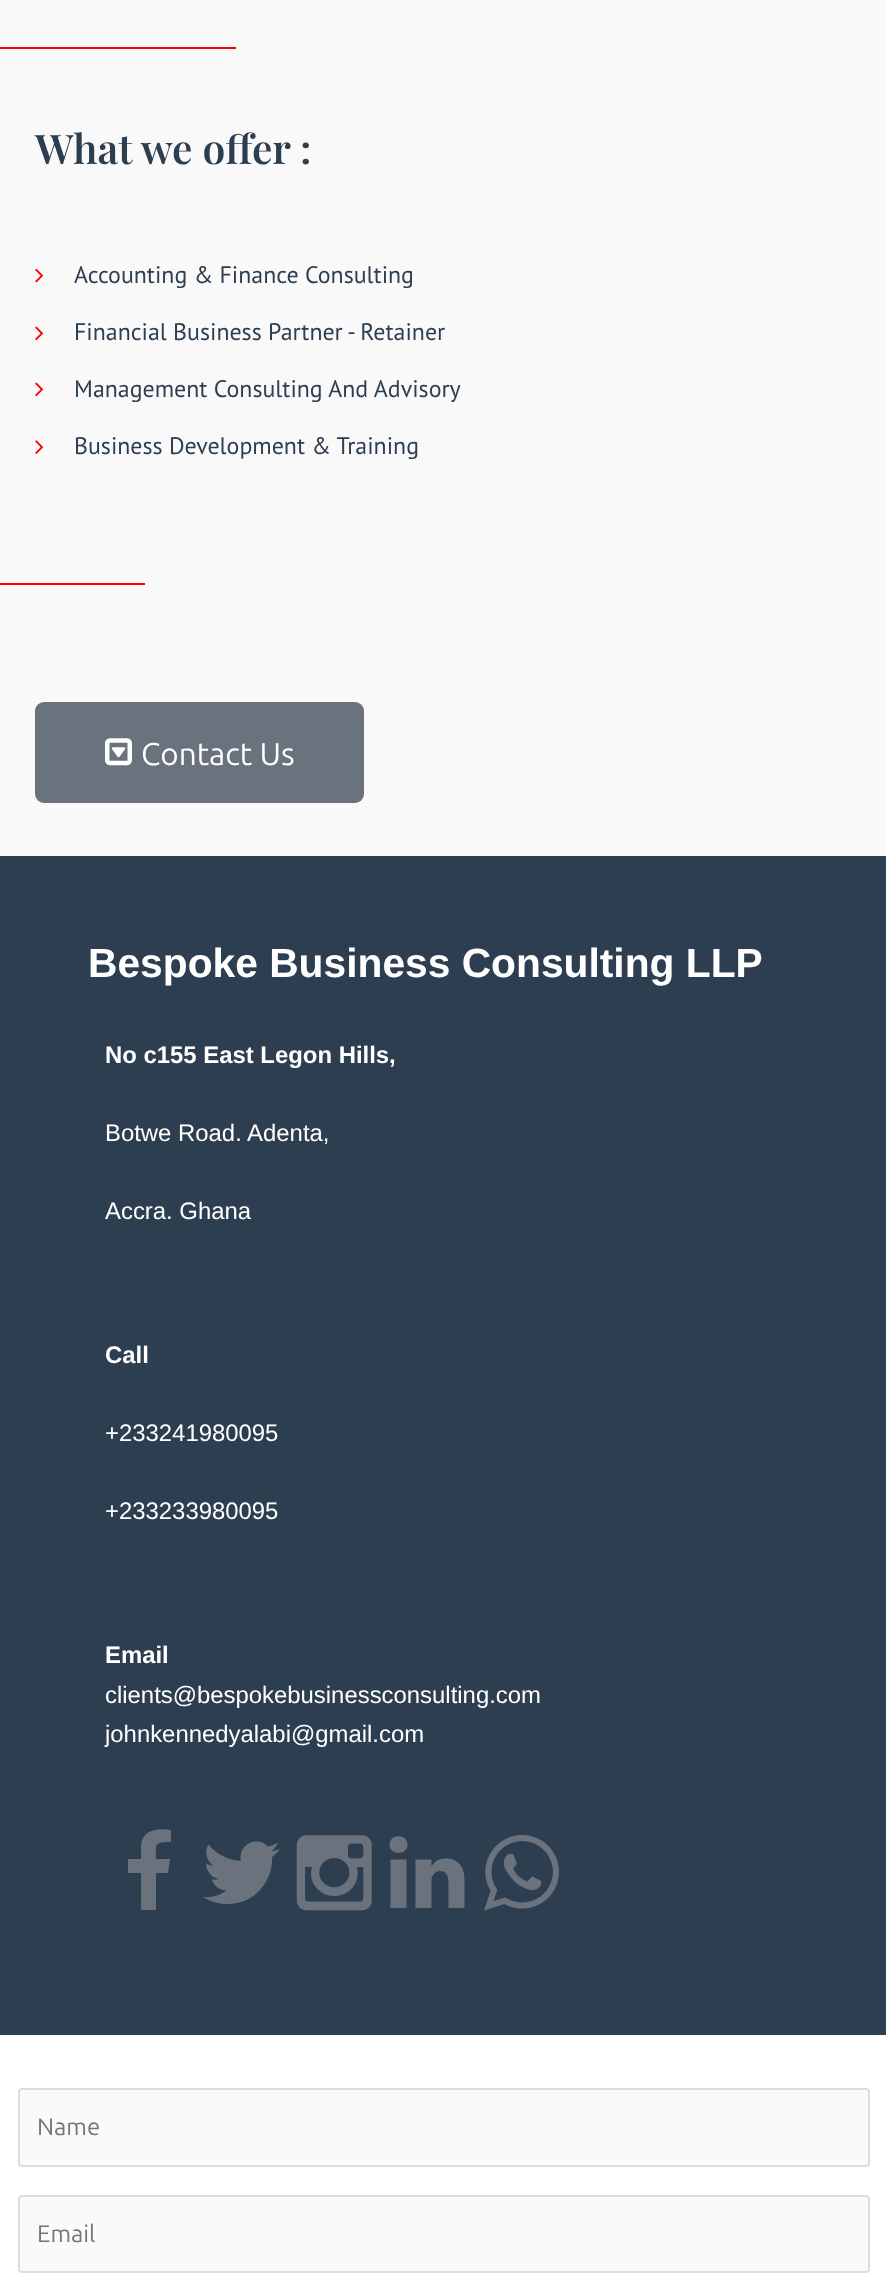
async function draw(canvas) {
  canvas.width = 886
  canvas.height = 2274
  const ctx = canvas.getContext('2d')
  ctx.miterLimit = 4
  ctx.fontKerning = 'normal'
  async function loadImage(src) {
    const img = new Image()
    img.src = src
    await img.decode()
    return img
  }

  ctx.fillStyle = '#fff'
  ctx.fillRect(0, 0, 886, 2274)
  ctx.fillStyle = '#f9f9f9'
  ctx.fillRect(0, 0, 886, 856)
  ctx.fillStyle = '#fe0000'
  ctx.fillRect(0, 47, 236, 2)
  ctx.font = '600 40.75px Playfair Display'
  ctx.fillStyle = '#2c3e50'
  ctx.fillText('What we offer :', 35, 164)
  ctx.drawImage(await loadImage('image0.png'), 35, 268, 9, 15)
  ctx.font = '23.9px PT Sans'
  ctx.fillText('Accounting & Finance Consulting', 74, 283)
  ctx.drawImage(await loadImage('image1.png'), 35, 326, 9, 15)
  ctx.fillText('Financial Business Partner - Retainer', 74, 340)
  ctx.drawImage(await loadImage('image1.png'), 35, 382, 9, 15)
  ctx.fillText('Management Consulting And Advisory', 74, 397)
  ctx.drawImage(await loadImage('image2.png'), 35, 440, 9, 14)
  ctx.fillText('Business Development & Training', 74, 454)
  ctx.fillStyle = '#fe0000'
  ctx.fillRect(0, 583, 145, 2)
  ctx.fillStyle = '#69727d'
  ctx.beginPath()
  ctx.roundRect(35, 702, 329, 101, 9)
  ctx.fill()
  ctx.drawImage(await loadImage('image3.png'), 105, 738, 27, 28)
  ctx.font = '31.5px Ubuntu'
  ctx.fillStyle = '#fff'
  ctx.fillText('Contact Us', 141, 765)
  ctx.fillStyle = '#2c3e50'
  ctx.fillRect(0, 856, 886, 1179)
  ctx.font = 'bold 40.75px Liberation Sans'
  ctx.fillStyle = '#fff'
  ctx.fillText('Bespoke Business Consulting LLP', 88, 977)
  ctx.font = 'bold 23.9px Liberation Sans'
  ctx.fillText('No c155 East Legon Hills,', 105, 1063)
  ctx.font = '23.9px Liberation Sans'
  ctx.fillText('Botwe Road. Adenta,', 105, 1141)
  ctx.fillText('Accra. Ghana', 105, 1219)
  ctx.font = 'bold 23.9px Liberation Sans'
  ctx.fillText('Call', 105, 1363)
  ctx.font = '23.9px Liberation Sans'
  ctx.fillText('+233241980095', 105, 1441)
  ctx.fillText('+233233980095', 105, 1519)
  ctx.font = 'bold 23.9px Liberation Sans'
  ctx.fillText('Email', 105, 1663)
  ctx.font = '23.9px Liberation Sans'
  ctx.fillText('clients@bespokebusinessconsulting.com', 105, 1703)
  ctx.fillText('johnkennedyalabi@gmail.com', 105, 1742)
  ctx.fillStyle = '#69727d'
  ctx.beginPath()
  ctx.moveTo(171, 1830)
  ctx.lineTo(171, 1842)
  ctx.bezierCurveTo(154, 1842, 156, 1843, 156, 1859)
  ctx.lineTo(170, 1859)
  ctx.lineTo(168, 1873)
  ctx.lineTo(156, 1873)
  ctx.lineTo(156, 1910)
  ctx.lineTo(141, 1910)
  ctx.lineTo(141, 1873)
  ctx.lineTo(128, 1873)
  ctx.lineTo(128, 1859)
  ctx.lineTo(141, 1859)
  ctx.lineTo(141, 1844)
  ctx.bezierCurveTo(144, 1829, 158, 1828, 171, 1830)
  ctx.closePath()
  ctx.fill()
  ctx.drawImage(await loadImage('image4.png'), 203, 1841, 77, 63)
  ctx.drawImage(await loadImage('image5.png'), 296, 1835, 76, 76)
  ctx.drawImage(await loadImage('image6.png'), 389, 1836, 76, 72)
  ctx.drawImage(await loadImage('image7.png'), 484, 1835, 75, 76)
  ctx.fillStyle = '#fafafa'
  ctx.beginPath()
  ctx.roundRect(19, 2089, 850, 77, 3)
  ctx.fill()
  ctx.strokeStyle = '#ddd'
  ctx.lineWidth = 2
  ctx.stroke()
  ctx.font = '23.9px Ubuntu'
  ctx.fillStyle = '#757575'
  ctx.fillText('Name', 37, 2135)
  ctx.fillStyle = '#fafafa'
  ctx.beginPath()
  ctx.roundRect(19, 2196, 850, 76, 3)
  ctx.fill()
  ctx.stroke()
  ctx.fillStyle = '#757575'
  ctx.fillText('Email', 37, 2242)
}

draw(document.querySelector('canvas'))
